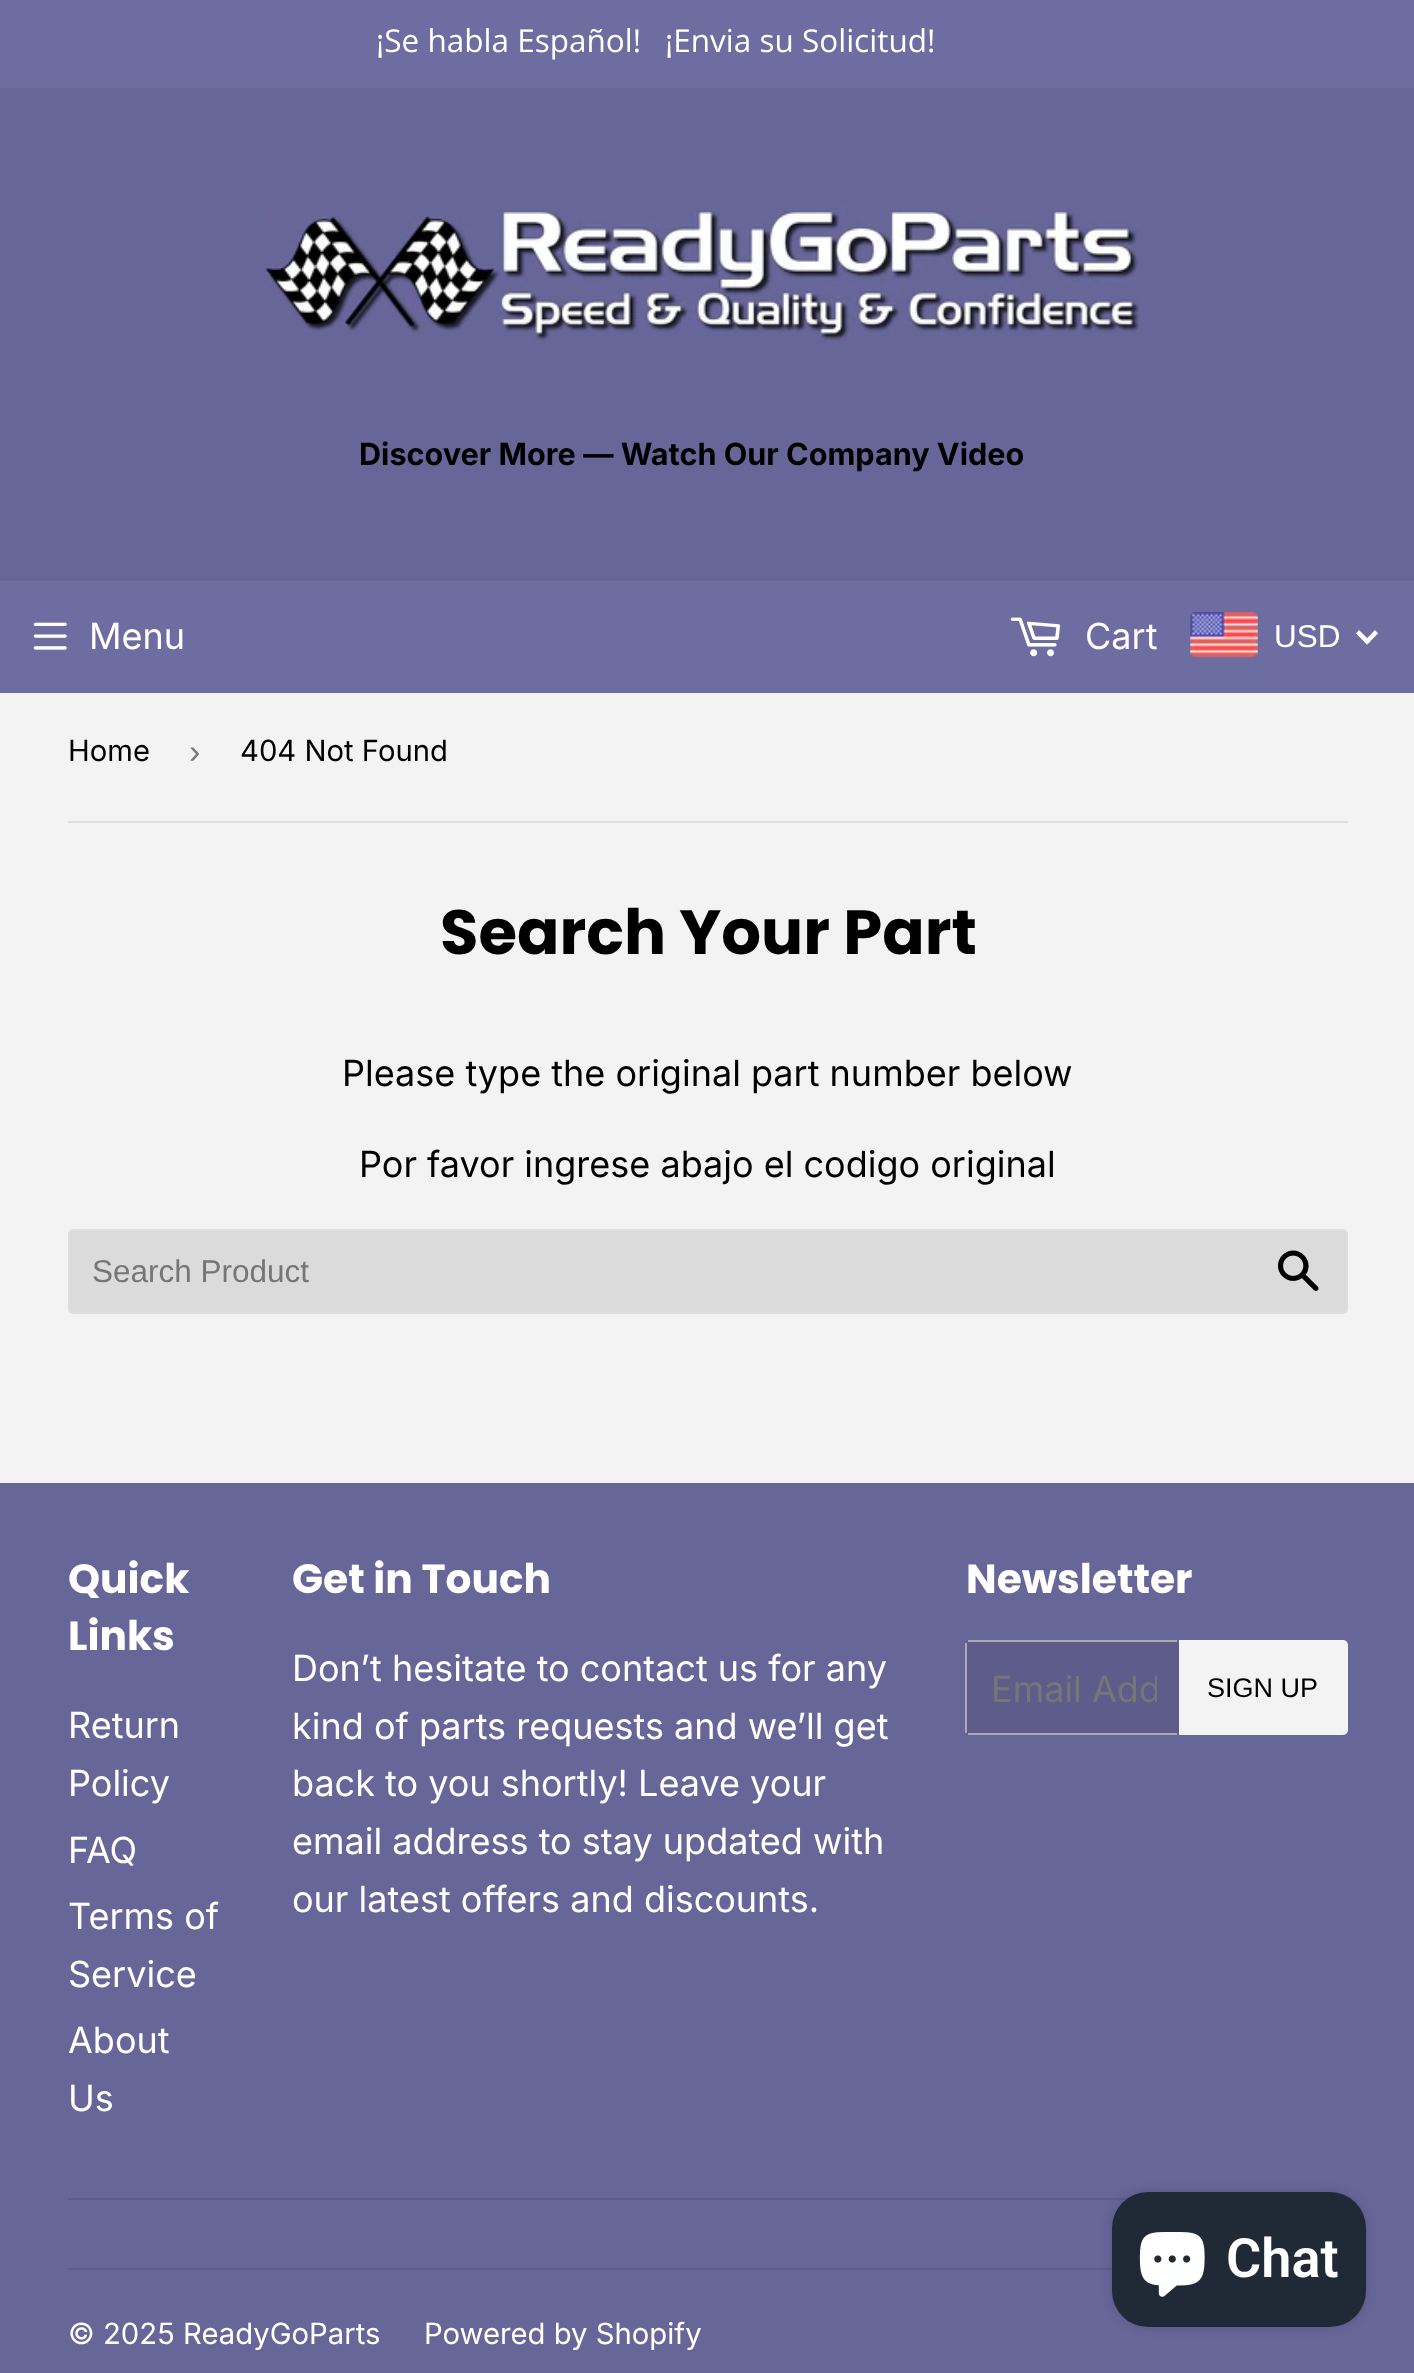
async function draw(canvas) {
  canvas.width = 1414
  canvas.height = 2373
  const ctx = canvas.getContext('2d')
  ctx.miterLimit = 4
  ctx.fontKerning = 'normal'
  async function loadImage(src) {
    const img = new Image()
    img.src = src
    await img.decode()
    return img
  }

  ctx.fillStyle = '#f3f3f3'
  ctx.fillRect(0, 0, 1414, 2373)
  ctx.fillStyle = '#6e6da2'
  ctx.fillRect(0, 0, 1414, 88)
  ctx.font = '31.5px Open Sans'
  ctx.fillStyle = '#fff'
  ctx.fillText('¡Se habla Español!  ¡Envia su Solicitud!', 376, 52)
  ctx.fillStyle = '#676699'
  ctx.fillRect(0, 88, 1414, 493)
  ctx.drawImage(await loadImage('image0.png'), 262, 205, 877, 138)
  ctx.font = 'bold 30.6px Inter'
  ctx.fillStyle = '#000'
  ctx.fillText('Discover More — Watch Our Company Video', 359, 465)
  ctx.fillStyle = '#6e6da2'
  ctx.fillRect(0, 581, 1414, 112)
  ctx.drawImage(await loadImage('image1.png'), 33, 622, 34, 28)
  ctx.font = '36px Inter'
  ctx.fillStyle = '#fff'
  ctx.fillText('Menu', 89, 649)
  ctx.drawImage(await loadImage('image2.png'), 1010, 617, 50, 40)
  ctx.fillText('Cart', 1085, 649)
  ctx.drawImage(await loadImage('image3.png'), 1190, 612, 68, 45)
  ctx.font = '31.5px Liberation Sans'
  ctx.fillText('USD', 1274, 647)
  ctx.beginPath()
  ctx.moveTo(1375, 630)
  ctx.lineTo(1378, 633.5)
  ctx.lineTo(1367, 644.5)
  ctx.lineTo(1364, 641.5)
  ctx.closePath()
  ctx.fill()
  ctx.beginPath()
  ctx.moveTo(1359, 630)
  ctx.lineTo(1370.5, 641.5)
  ctx.lineTo(1367, 644.5)
  ctx.lineTo(1356, 633.5)
  ctx.closePath()
  ctx.fill()
  ctx.fillStyle = '#dedede'
  ctx.fillRect(68, 821, 1280, 2)
  ctx.font = '29.25px Inter'
  ctx.fillStyle = '#000'
  ctx.fillText('Home', 68, 761)
  ctx.font = '34px Liberation Sans'
  ctx.fillStyle = '#767676'
  ctx.fillText('›', 189, 763)
  ctx.font = '29.25px Inter'
  ctx.fillStyle = '#000'
  ctx.fillText('404 Not Found', 240, 761)
  ctx.font = 'bold 62.5px Poppins'
  ctx.fillText('Search Your Part', 440, 954)
  ctx.font = '36px Inter'
  ctx.fillText('Please type the original part number below', 342, 1086)
  ctx.fillText('Por favor ingrese abajo el codigo original', 359, 1177)
  ctx.fillStyle = '#dbdbdb'
  ctx.beginPath()
  ctx.roundRect(69, 1230, 1278, 83, 4)
  ctx.fill()
  ctx.strokeStyle = '#dedede'
  ctx.lineWidth = 2
  ctx.stroke()
  ctx.font = '31.5px Liberation Sans'
  ctx.fillStyle = '#767676'
  ctx.fillText('Search Product', 92, 1282)
  ctx.drawImage(await loadImage('image4.png'), 1278, 1250, 41, 41)
  ctx.fillStyle = '#676699'
  ctx.fillRect(0, 1483, 1414, 890)
  ctx.font = 'bold 40.75px Poppins'
  ctx.fillStyle = '#fff'
  ctx.fillText('Quick', 68, 1593)
  ctx.fillText('Links', 68, 1650)
  ctx.font = '36px Inter'
  ctx.fillText('Return', 68, 1738)
  ctx.fillText('Policy', 68, 1796)
  ctx.fillText('FAQ', 68, 1863)
  ctx.fillText('Terms of', 68, 1929)
  ctx.fillText('Service', 68, 1987)
  ctx.fillText('About', 68, 2053)
  ctx.fillText('Us', 68, 2111)
  ctx.font = 'bold 40.75px Poppins'
  ctx.fillText('Get in Touch', 292, 1593)
  ctx.font = '36px Inter'
  ctx.fillText('Don’t hesitate to contact us for any', 292, 1681)
  ctx.fillText('kind of parts requests and we’ll get', 292, 1739)
  ctx.fillText('back to you shortly! Leave your', 292, 1796)
  ctx.fillText('email address to stay updated with', 292, 1854)
  ctx.fillText('our latest offers and discounts.', 292, 1912)
  ctx.font = 'bold 40.75px Poppins'
  ctx.fillText('Newsletter', 966, 1593)
  ctx.fillStyle = '#5d5c8a'
  ctx.beginPath()
  ctx.roundRect(965, 1640, 214, 95, 5)
  ctx.fill()
  ctx.fillStyle = '#ababab'
  ctx.fillRect(968, 1640, 209, 2)
  ctx.fillRect(968, 1733, 209, 2)
  ctx.fillRect(965, 1643, 2, 90)
  ctx.save()
  ctx.beginPath()
  ctx.rect(990, 1665, 167, 45)
  ctx.clip()
  ctx.font = '36px Inter'
  ctx.fillStyle = '#767676'
  ctx.fillText('Email Add', 991, 1702)
  ctx.restore()
  ctx.fillStyle = '#f3f3f3'
  ctx.beginPath()
  ctx.roundRect(1179, 1640, 169, 95, [0, 5, 5, 0])
  ctx.fill()
  ctx.font = '27px Liberation Sans'
  ctx.fillStyle = '#000'
  ctx.fillText('SIGN UP', 1207, 1697)
  ctx.fillStyle = '#5d5c8a'
  ctx.fillRect(68, 2198, 1060, 2)
  ctx.fillRect(68, 2268, 1044, 2)
  ctx.font = '29.25px Inter'
  ctx.fillStyle = '#fff'
  ctx.fillText('© 2025 ReadyGoParts', 68, 2344)
  ctx.fillText('Powered by Shopify', 424, 2344)
  ctx.fillStyle = '#00000026'
  ctx.filter = 'blur(5.5px)'
  ctx.beginPath()
  ctx.roundRect(1112, 2192, 254, 135, 36)
  ctx.fill()
  ctx.filter = 'none'
  ctx.fillStyle = '#202a36'
  ctx.beginPath()
  ctx.roundRect(1112, 2192, 254, 135, 36)
  ctx.fill()
  ctx.drawImage(await loadImage('image5.png'), 1139, 2232, 66, 65)
  ctx.font = '600 54px Roboto'
  ctx.fillStyle = '#fff'
  ctx.fillText('Chat', 1226, 2277)
}

draw(document.querySelector('canvas'))
